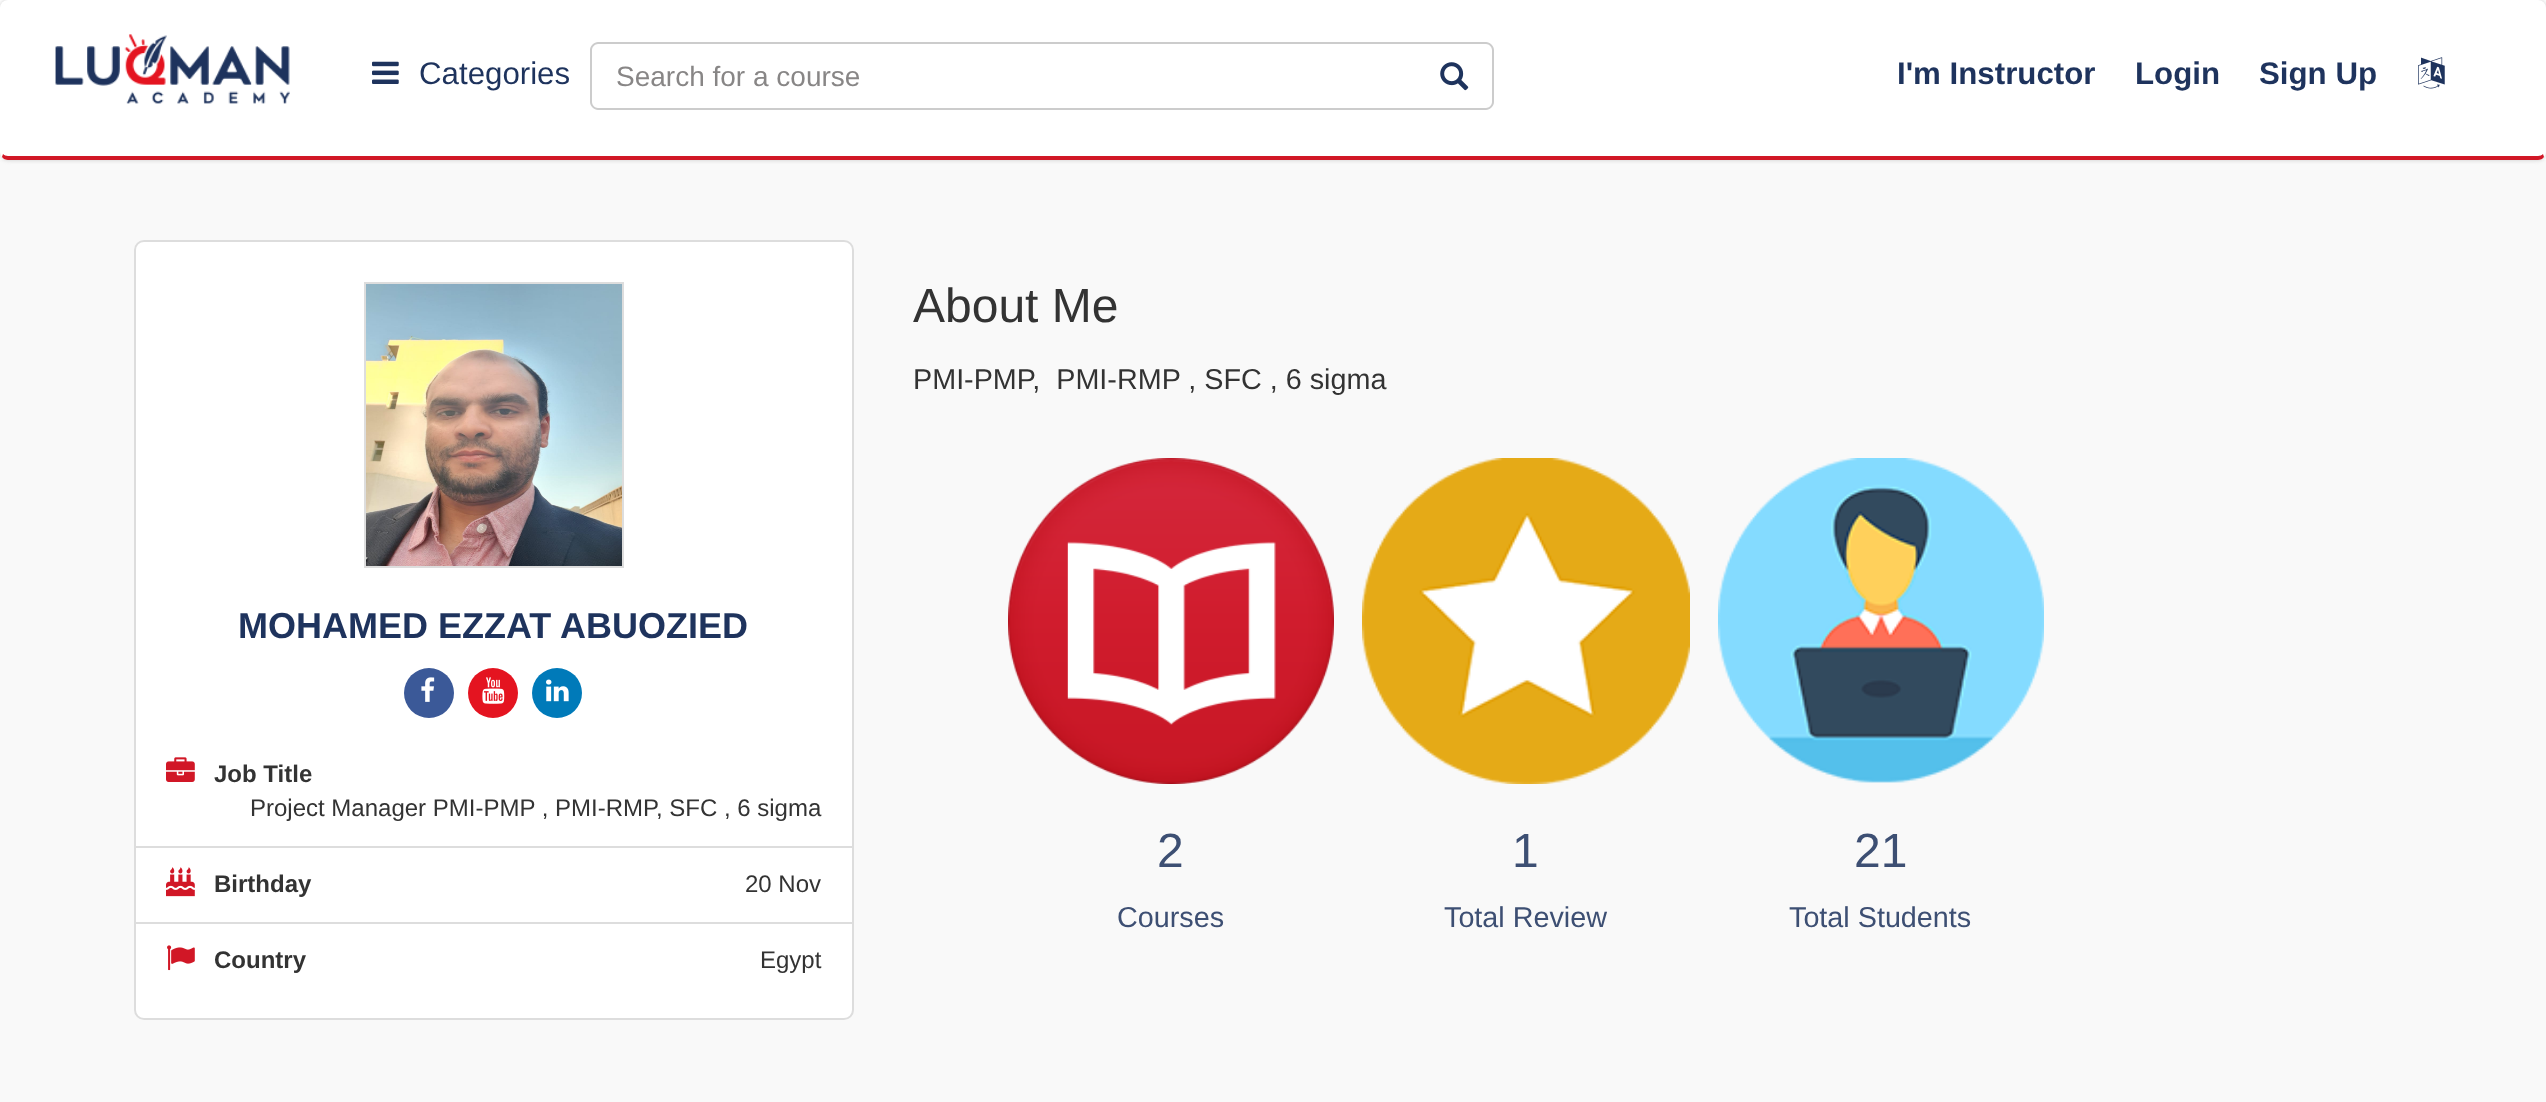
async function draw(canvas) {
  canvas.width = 2546
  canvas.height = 1102
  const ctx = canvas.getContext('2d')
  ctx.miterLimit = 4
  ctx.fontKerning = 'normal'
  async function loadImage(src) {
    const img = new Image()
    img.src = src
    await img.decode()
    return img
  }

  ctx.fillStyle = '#f9f9f9'
  ctx.fillRect(0, 0, 2546, 1102)
  ctx.fillStyle = '#fff'
  ctx.fillRect(0, 0, 2546, 160)
  ctx.fillStyle = '#ccc'
  ctx.filter = 'blur(2px)'
  ctx.beginPath()
  ctx.roundRect(0, 0, 2546, 160, 8)
  ctx.fill()
  ctx.filter = 'none'
  ctx.fillStyle = '#fff'
  ctx.beginPath()
  ctx.roundRect(0, 0, 2546, 160, 8)
  ctx.fill()
  ctx.fillStyle = '#d11726'
  ctx.beginPath()
  ctx.moveTo(8, 160)
  ctx.lineTo(2538, 160)
  ctx.bezierCurveTo(2540, 160, 2543, 159, 2544, 157)
  ctx.lineTo(2543, 154)
  ctx.bezierCurveTo(2542, 155, 2540, 156, 2538, 156)
  ctx.lineTo(8, 156)
  ctx.bezierCurveTo(6, 156, 4, 155, 3, 154)
  ctx.lineTo(2, 157)
  ctx.bezierCurveTo(3, 159, 6, 160, 8, 160)
  ctx.closePath()
  ctx.fill()
  ctx.drawImage(await loadImage('image0.png'), 55, 34, 235, 70)
  ctx.drawImage(await loadImage('image1.png'), 372, 61, 27, 23)
  ctx.font = '31.25px Liberation Sans'
  ctx.fillStyle = '#1e335d'
  ctx.fillText('Categories', 419, 84)
  ctx.fillStyle = '#ccc'
  ctx.beginPath()
  ctx.moveTo(598, 42)
  ctx.lineTo(1416, 42)
  ctx.lineTo(1416, 110)
  ctx.lineTo(598, 110)
  ctx.bezierCurveTo(594, 110, 590, 106, 590, 102)
  ctx.lineTo(590, 50)
  ctx.bezierCurveTo(590, 46, 594, 42, 598, 42)
  ctx.closePath()
  ctx.moveTo(598, 44)
  ctx.lineTo(1416, 44)
  ctx.lineTo(1416, 108)
  ctx.lineTo(598, 108)
  ctx.bezierCurveTo(595, 108, 592, 105, 592, 102)
  ctx.lineTo(592, 50)
  ctx.bezierCurveTo(592, 47, 595, 44, 598, 44)
  ctx.closePath()
  ctx.fill('evenodd')
  ctx.font = '28px Liberation Sans'
  ctx.fillStyle = '#888686'
  ctx.fillText('Search for a course', 616, 86)
  ctx.fillStyle = '#ccc'
  ctx.beginPath()
  ctx.moveTo(1416, 42)
  ctx.lineTo(1486, 42)
  ctx.bezierCurveTo(1490, 42, 1494, 46, 1494, 50)
  ctx.lineTo(1494, 102)
  ctx.bezierCurveTo(1494, 106, 1490, 110, 1486, 110)
  ctx.lineTo(1416, 110)
  ctx.closePath()
  ctx.moveTo(1416, 44)
  ctx.lineTo(1486, 44)
  ctx.bezierCurveTo(1489, 44, 1492, 47, 1492, 50)
  ctx.lineTo(1492, 102)
  ctx.bezierCurveTo(1492, 105, 1489, 108, 1486, 108)
  ctx.lineTo(1416, 108)
  ctx.closePath()
  ctx.fill('evenodd')
  ctx.drawImage(await loadImage('image2.png'), 1440, 62, 29, 29)
  ctx.font = 'bold 31.25px Liberation Sans'
  ctx.fillStyle = '#1e335d'
  ctx.fillText('I\'m Instructor', 1897, 84)
  ctx.fillText('Login', 2135, 84)
  ctx.fillText('Sign Up', 2259, 84)
  ctx.drawImage(await loadImage('image3.png'), 2418, 57, 27, 32)
  ctx.font = '48px Liberation Sans'
  ctx.fillStyle = '#333'
  ctx.fillText('About Me', 913, 322)
  ctx.font = '28.75px Liberation Sans'
  ctx.fillText('PMI-PMP,  PMI-RMP , SFC , 6 sigma', 913, 389)
  ctx.fillStyle = '#fff'
  ctx.beginPath()
  ctx.roundRect(135, 241, 718, 778, 9)
  ctx.fill()
  ctx.strokeStyle = '#ddd'
  ctx.lineWidth = 2
  ctx.stroke()
  ctx.strokeRect(365, 283, 258, 284)
  ctx.drawImage(await loadImage('image4.png'), 366, 284, 256, 282)
  ctx.font = 'bold 36px Liberation Sans'
  ctx.fillStyle = '#1e335d'
  ctx.fillText('MOHAMED EZZAT ABUOZIED', 238, 638)
  ctx.fillStyle = '#3b5998'
  ctx.beginPath()
  ctx.arc(429, 693, 25, 0, 2 * Math.PI)
  ctx.fill()
  ctx.drawImage(await loadImage('image5.png'), 421, 677, 14, 25)
  ctx.fillStyle = '#e41420'
  ctx.beginPath()
  ctx.arc(493, 693, 25, 0, 2 * Math.PI)
  ctx.fill()
  ctx.drawImage(await loadImage('image6.png'), 482, 677, 23, 27)
  ctx.fillStyle = '#007ab9'
  ctx.beginPath()
  ctx.arc(557, 693, 25, 0, 2 * Math.PI)
  ctx.fill()
  ctx.drawImage(await loadImage('image7.png'), 546, 679, 23, 23)
  ctx.fillStyle = '#ddd'
  ctx.fillRect(136, 846, 716, 2)
  ctx.drawImage(await loadImage('image8.png'), 166, 757, 29, 25)
  ctx.font = 'bold 24px Liberation Sans'
  ctx.fillStyle = '#333'
  ctx.fillText('Job Title', 214, 782)
  ctx.font = '24px Liberation Sans'
  ctx.fillText('Project Manager PMI-PMP , PMI-RMP, SFC , 6 sigma', 250, 816)
  ctx.fillStyle = '#ddd'
  ctx.fillRect(136, 922, 716, 2)
  ctx.drawImage(await loadImage('image9.png'), 166, 867, 29, 30)
  ctx.font = 'bold 24px Liberation Sans'
  ctx.fillStyle = '#333'
  ctx.fillText('Birthday', 214, 892)
  ctx.font = '24px Liberation Sans'
  ctx.fillText('20 Nov', 745, 892)
  ctx.drawImage(await loadImage('image10.png'), 167, 945, 28, 26)
  ctx.font = 'bold 24px Liberation Sans'
  ctx.fillText('Country', 214, 968)
  ctx.font = '24px Liberation Sans'
  ctx.fillText('Egypt', 760, 968)
  ctx.drawImage(await loadImage('image11.png'), 1008, 458, 326, 326)
  ctx.font = '48px Liberation Sans'
  ctx.fillStyle = '#3d4f73'
  ctx.fillText('2', 1157, 867)
  ctx.font = '28.75px Liberation Sans'
  ctx.fillText('Courses', 1117, 927)
  ctx.drawImage(await loadImage('image12.png'), 1362, 458, 328, 326)
  ctx.font = '48px Liberation Sans'
  ctx.fillText('1', 1512, 867)
  ctx.font = '28.75px Liberation Sans'
  ctx.fillText('Total Review', 1444, 927)
  ctx.drawImage(await loadImage('image13.png'), 1718, 458, 326, 325)
  ctx.font = '48px Liberation Sans'
  ctx.fillText('21', 1854, 867)
  ctx.font = '28.75px Liberation Sans'
  ctx.fillText('Total Students', 1789, 927)
}

draw(document.querySelector('canvas'))
